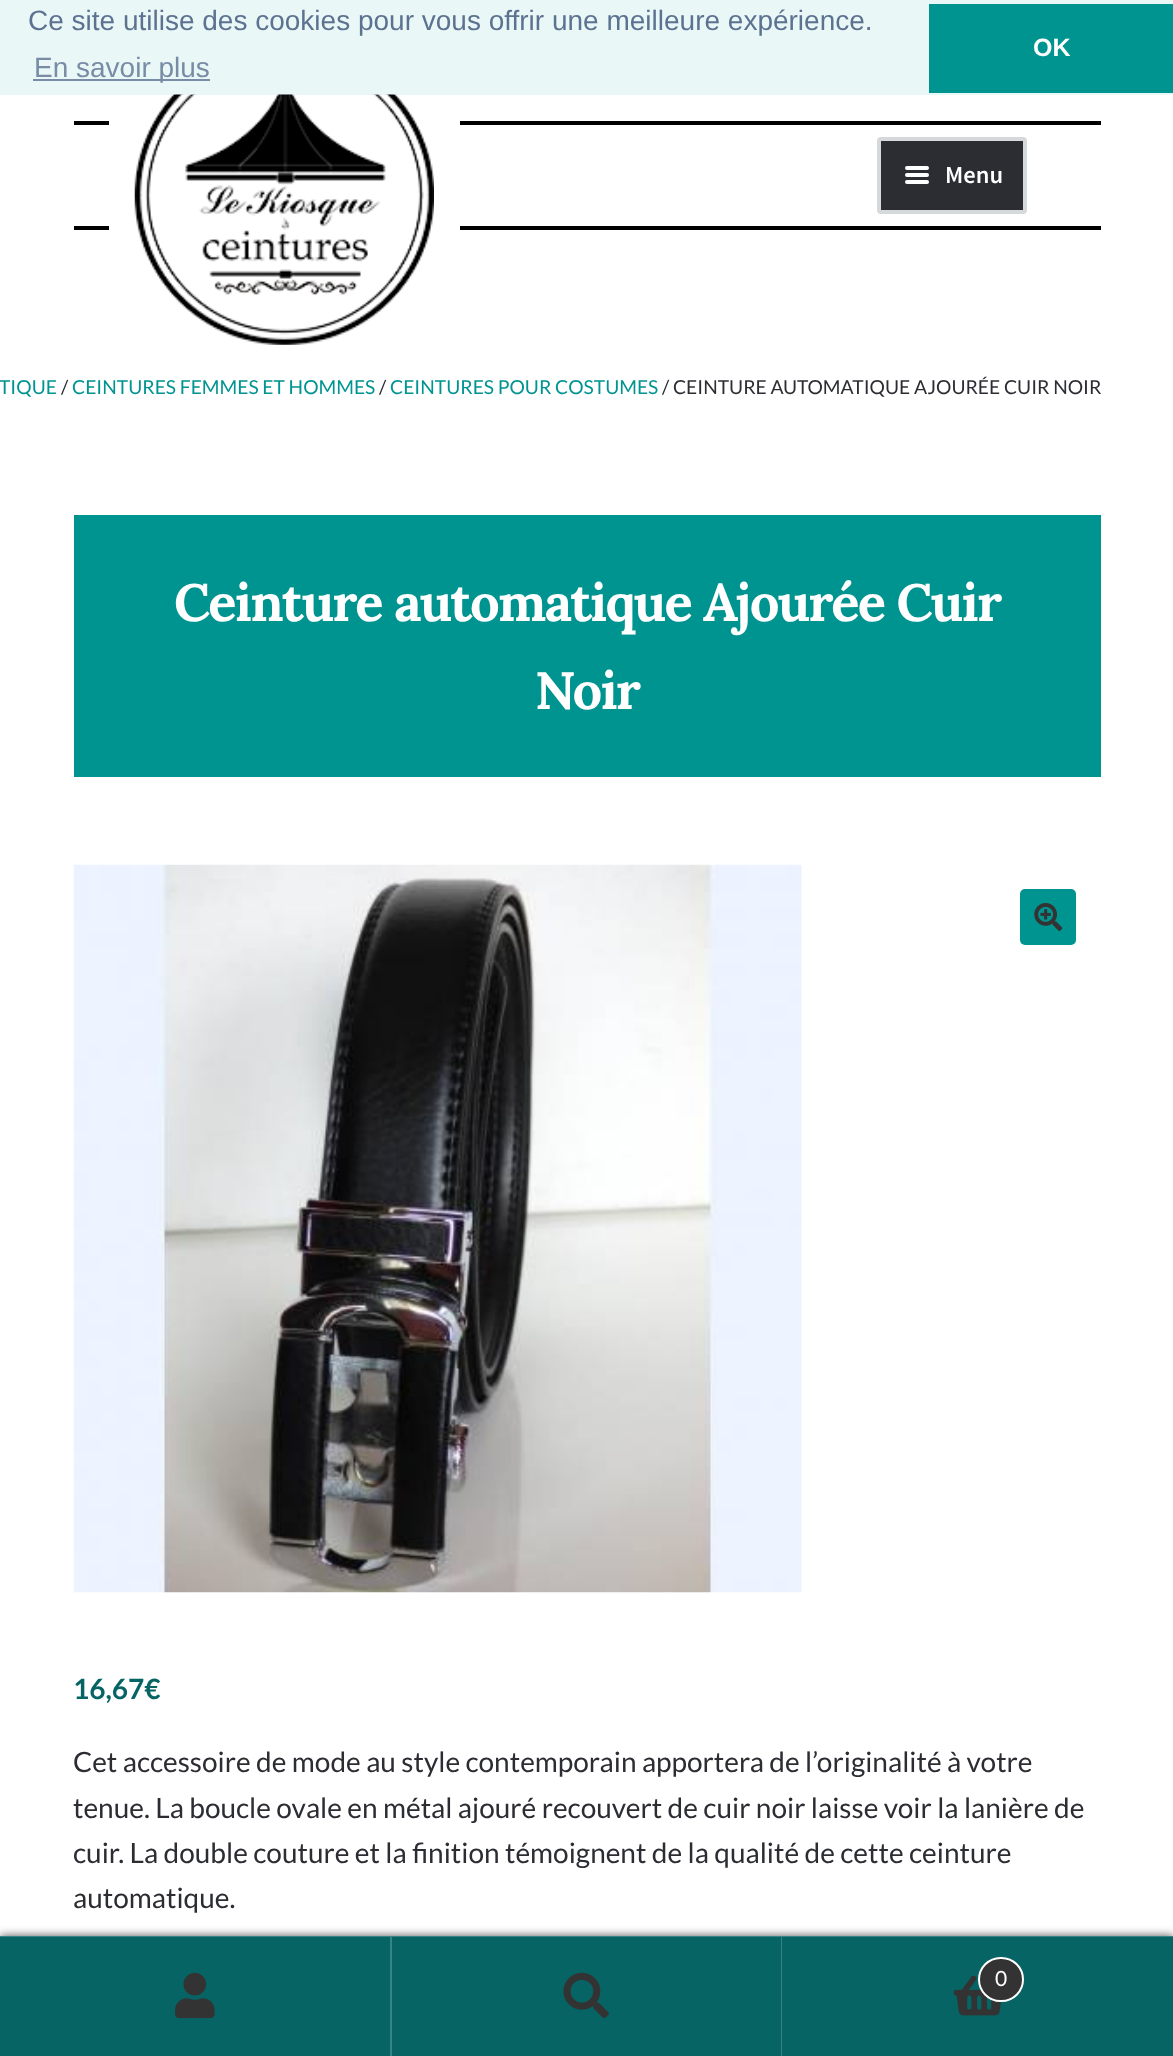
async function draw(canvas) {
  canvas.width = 1173
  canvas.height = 2056
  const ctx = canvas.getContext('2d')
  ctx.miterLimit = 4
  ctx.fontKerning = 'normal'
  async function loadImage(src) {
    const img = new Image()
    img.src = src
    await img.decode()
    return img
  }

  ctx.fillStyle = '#fff'
  ctx.fillRect(0, 0, 1173, 2056)
  ctx.fillStyle = '#eaf7f7'
  ctx.fillRect(0, 0, 1173, 95)
  ctx.font = '28px Liberation Sans'
  ctx.fillStyle = '#5c7291'
  ctx.fillText('Ce site utilise des cookies pour vous offrir une meilleure expérience.', 28, 30)
  ctx.fillStyle = '#788da5'
  ctx.fillRect(33, 79, 177, 2)
  ctx.fillText('En savoir plus', 34, 77)
  ctx.fillStyle = '#009491'
  ctx.fillRect(929, 4, 244, 89)
  ctx.font = 'bold 25px Liberation Sans'
  ctx.fillStyle = '#fff'
  ctx.fillText('OK', 1033, 56)
  ctx.fillStyle = '#000'
  ctx.fillRect(74, 121, 1027, 4)
  ctx.fillRect(74, 226, 1027, 4)
  ctx.fillStyle = '#fff'
  ctx.fillRect(109, 121, 351, 109)
  ctx.drawImage(await loadImage('image0.png'), 134, 94, 300, 251)
  ctx.fillStyle = '#2c2d33'
  ctx.beginPath()
  ctx.roundRect(879, 139, 146, 73, 2)
  ctx.fill()
  ctx.strokeStyle = '#d5d9db'
  ctx.lineWidth = 4
  ctx.stroke()
  ctx.fillStyle = '#fff'
  ctx.beginPath()
  ctx.roundRect(905, 166, 24, 4, 2)
  ctx.fill()
  ctx.beginPath()
  ctx.roundRect(905, 173, 24, 4, 2)
  ctx.fill()
  ctx.font = '600 24.5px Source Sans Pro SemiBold'
  ctx.fillText('Menu', 945, 183)
  ctx.beginPath()
  ctx.roundRect(905, 180, 24, 4, 2)
  ctx.fill()
  ctx.font = '19.25px Lato'
  ctx.fillStyle = '#009491'
  ctx.fillText('TIQUE', -1, 394)
  ctx.fillStyle = '#2c2d33'
  ctx.fillText('/', 61, 394)
  ctx.fillStyle = '#009491'
  ctx.fillText('CEINTURES FEMMES ET HOMMES', 72, 394)
  ctx.fillStyle = '#2c2d33'
  ctx.fillText('/', 379, 394)
  ctx.fillStyle = '#009491'
  ctx.fillText('CEINTURES POUR COSTUMES', 390, 394)
  ctx.fillStyle = '#2c2d33'
  ctx.fillText('/ CEINTURE AUTOMATIQUE AJOURÉE CUIR NOIR', 662, 394)
  ctx.fillStyle = '#009491'
  ctx.fillRect(74, 515, 1027, 262)
  ctx.letterSpacing = '-1.75px'
  ctx.font = 'bold 52.5px Lora'
  ctx.fillStyle = '#fff'
  ctx.fillText('Ceinture automatique Ajourée Cuir', 174, 621)
  ctx.fillText('Noir', 535, 709)
  ctx.drawImage(await loadImage('image1.png'), 73, 864, 729, 729)
  ctx.fillStyle = '#009491'
  ctx.beginPath()
  ctx.roundRect(1020, 889, 56, 56, 5)
  ctx.fill()
  ctx.drawImage(await loadImage('image2.png'), 1034, 903, 29, 28)
  ctx.letterSpacing = '0px'
  ctx.font = 'bold 28px Lato'
  ctx.fillStyle = '#066464'
  ctx.fillText('16,67€', 73, 1699)
  ctx.font = '28px Lato'
  ctx.fillStyle = '#2c2d33'
  ctx.fillText('Cet accessoire de mode au style contemporain apportera de l’originalité à votre', 73, 1772)
  ctx.fillText('tenue. La boucle ovale en métal ajouré recouvert de cuir noir laisse voir la lanière de', 73, 1818)
  ctx.fillText('cuir. La double couture et la finition témoignent de la qualité de cette ceinture', 73, 1863)
  ctx.fillText('automatique.', 73, 1908)
  ctx.fillStyle = '#000000b3'
  ctx.filter = 'blur(5px)'
  ctx.beginPath()
  ctx.rect(0, 1936, 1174, 120)
  ctx.fill()
  ctx.filter = 'none'
  ctx.fillStyle = '#388383'
  ctx.fillRect(0, 1936, 1173, 1)
  ctx.fillStyle = '#066464'
  ctx.fillRect(0, 1937, 390, 119)
  ctx.fillStyle = '#388383'
  ctx.fillRect(390, 1937, 2, 119)
  ctx.drawImage(await loadImage('image3.png'), 175, 1972, 40, 47)
  ctx.fillStyle = '#066464'
  ctx.fillRect(392, 1937, 781, 119)
  ctx.fillStyle = '#ffffff33'
  ctx.fillRect(781, 1937, 1, 119)
  ctx.drawImage(await loadImage('image4.png'), 563, 1972, 46, 47)
  ctx.drawImage(await loadImage('image5.png'), 953, 1975, 48, 41)
  ctx.fillStyle = '#333'
  ctx.beginPath()
  ctx.roundRect(979, 1958, 44, 43, 21.5)
  ctx.fill()
  ctx.strokeStyle = '#fff'
  ctx.lineWidth = 2
  ctx.stroke()
  ctx.font = '21px Lato'
  ctx.fillStyle = '#fff'
  ctx.fillText('0', 995, 1986)
}

draw(document.querySelector('canvas'))
